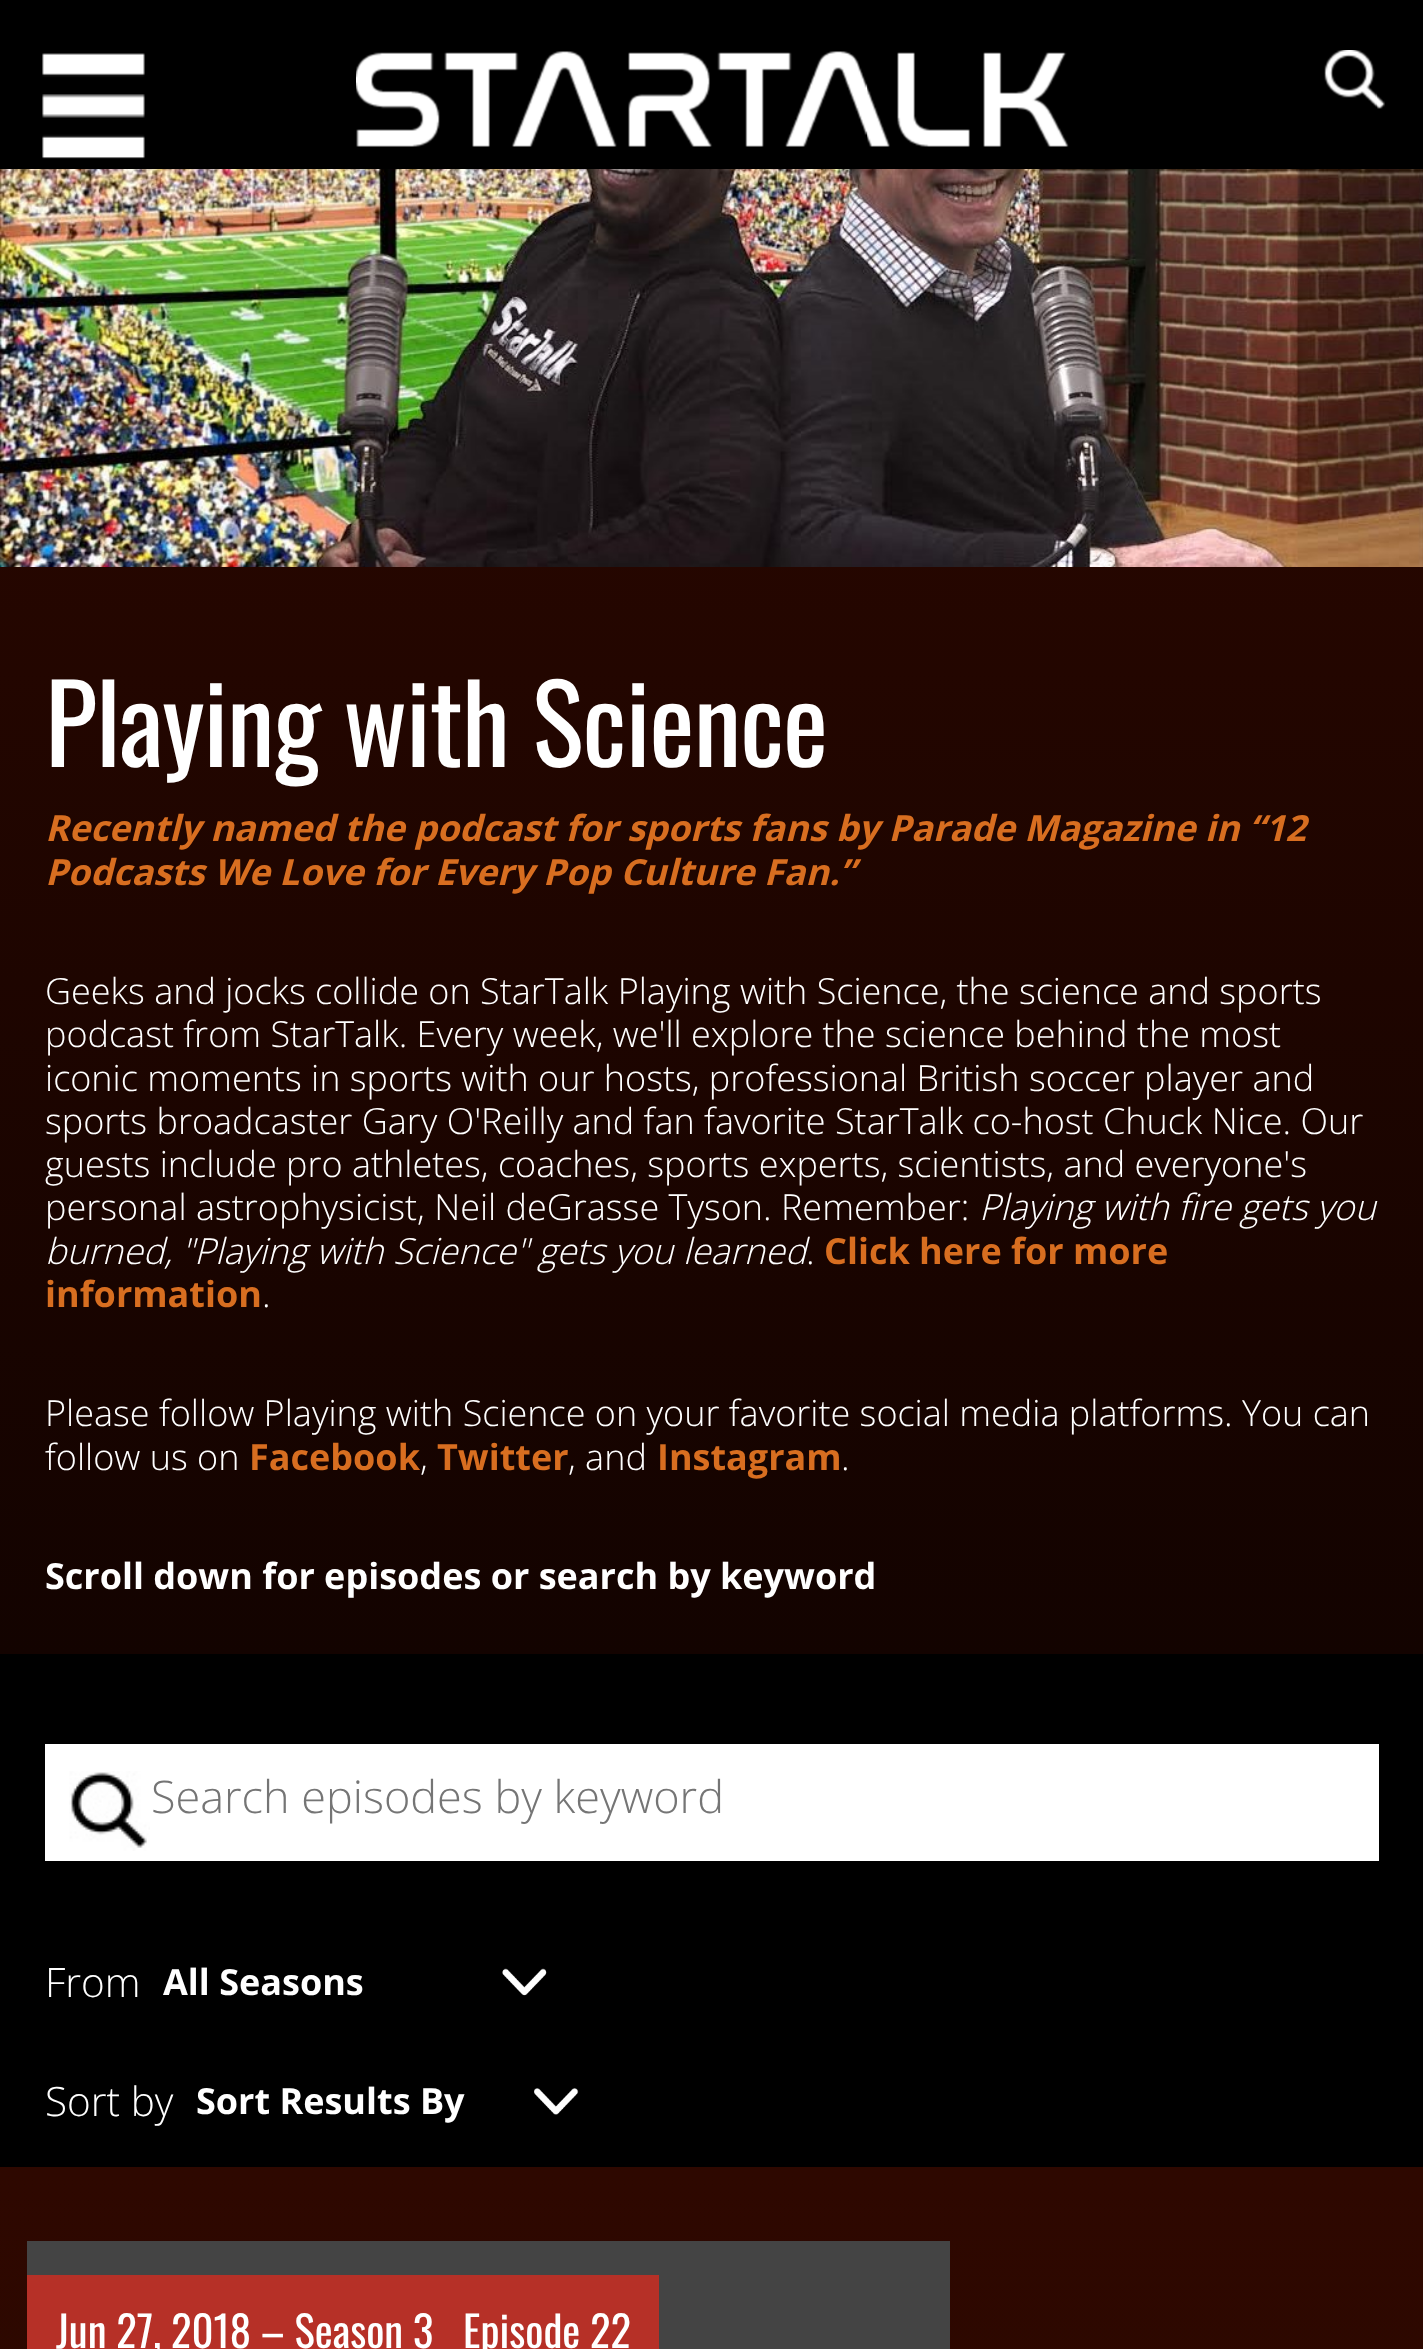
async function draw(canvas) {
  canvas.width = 1423
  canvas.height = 2349
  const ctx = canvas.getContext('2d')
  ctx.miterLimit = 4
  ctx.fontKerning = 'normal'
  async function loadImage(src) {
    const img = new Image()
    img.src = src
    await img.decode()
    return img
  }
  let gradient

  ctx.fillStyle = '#000'
  ctx.fillRect(0, 0, 1423, 2349)
  ctx.drawImage(await loadImage('image0.png'), 42, 53, 103, 106)
  ctx.drawImage(await loadImage('image1.png'), 356, 51, 713, 96)
  ctx.drawImage(await loadImage('image2.png'), 1324, 50, 61, 59)
  gradient = ctx.createLinearGradient(712, 1654, 712, 0)
  gradient.addColorStop(0, '#130300')
  gradient.addColorStop(1, '#2e0800')
  ctx.fillStyle = gradient
  ctx.fillRect(0, 567, 1423, 1087)
  ctx.drawImage(await loadImage('image3.png'), 0, 169, 1423, 398)
  ctx.letterSpacing = '-1.1px'
  ctx.font = '108px Oswald'
  ctx.fillStyle = '#fff'
  ctx.fillText('Playing with Science', 45, 767)
  ctx.letterSpacing = '0px'
  ctx.font = 'italic bold 36px Open Sans'
  ctx.fillStyle = '#d86e20'
  ctx.fillText('Recently named the podcast for sports fans by Parade Magazine in “12', 45, 841)
  ctx.fillText('Podcasts We Love for Every Pop Culture Fan.”', 45, 885)
  ctx.font = '300 36px Open Sans'
  ctx.fillStyle = '#fff'
  ctx.fillText('Geeks and jocks collide on StarTalk Playing with Science, the science and sports', 45, 1004)
  ctx.fillText('podcast from StarTalk. Every week, we\'ll explore the science behind the most', 45, 1047)
  ctx.fillText('iconic moments in sports with our hosts, professional British soccer player and', 45, 1091)
  ctx.fillText('sports broadcaster Gary O\'Reilly and fan favorite StarTalk co-host Chuck Nice. Our', 45, 1134)
  ctx.fillText('guests include pro athletes, coaches, sports experts, scientists, and everyone\'s', 45, 1177)
  ctx.fillText('personal astrophysicist, Neil deGrasse Tyson. Remember:', 45, 1220)
  ctx.font = 'italic 300 36px Open Sans'
  ctx.fillText('Playing with fire gets you', 979, 1220)
  ctx.fillText('burned, "Playing with Science" gets you learned', 45, 1264)
  ctx.font = '300 36px Open Sans'
  ctx.fillText('.', 806, 1264)
  ctx.font = 'bold 36px Open Sans'
  ctx.fillStyle = '#d86e20'
  ctx.fillText('Click here for more', 824, 1264)
  ctx.fillText('information', 45, 1307)
  ctx.font = '300 36px Open Sans'
  ctx.fillStyle = '#fff'
  ctx.fillText('.', 262, 1307)
  ctx.fillText('Please follow Playing with Science on your favorite social media platforms. You can', 45, 1426)
  ctx.fillText('follow us on', 45, 1470)
  ctx.font = 'bold 36px Open Sans'
  ctx.fillStyle = '#d86e20'
  ctx.fillText('Facebook', 249, 1470)
  ctx.font = '300 36px Open Sans'
  ctx.fillStyle = '#fff'
  ctx.fillText(',', 420, 1470)
  ctx.font = 'bold 36px Open Sans'
  ctx.fillStyle = '#d86e20'
  ctx.fillText('Twitter', 437, 1470)
  ctx.font = '300 36px Open Sans'
  ctx.fillStyle = '#fff'
  ctx.fillText(', and', 568, 1470)
  ctx.font = 'bold 36px Open Sans'
  ctx.fillStyle = '#d86e20'
  ctx.fillText('Instagram', 657, 1470)
  ctx.font = '300 36px Open Sans'
  ctx.fillStyle = '#fff'
  ctx.fillText('.', 841, 1470)
  ctx.font = 'bold 36px Open Sans'
  ctx.fillText('Scroll down for episodes or search by keyword', 45, 1589)
  ctx.fillRect(45, 1744, 1334, 117)
  ctx.drawImage(await loadImage('image4.png'), 69, 1771, 81, 80)
  ctx.font = '300 45px Open Sans'
  ctx.fillStyle = '#757575'
  ctx.fillText('Search episodes by keyword', 151, 1813)
  ctx.font = '300 40.5px Open Sans'
  ctx.fillStyle = '#fff'
  ctx.fillText('From', 45, 1997)
  ctx.drawImage(await loadImage('image5.png'), 502, 1968, 45, 28)
  ctx.font = 'bold 36px Open Sans'
  ctx.fillText('All Seasons', 163, 1995)
  ctx.font = '300 40.5px Open Sans'
  ctx.fillText('Sort by', 45, 2116)
  ctx.drawImage(await loadImage('image6.png'), 534, 2088, 45, 27)
  ctx.font = 'bold 36px Open Sans'
  ctx.fillText('Sort Results By', 196, 2114)
  gradient = ctx.createLinearGradient(712, 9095, 712, 2167)
  gradient.addColorStop(0, '#130300')
  gradient.addColorStop(1, '#2e0800')
  ctx.fillStyle = gradient
  ctx.fillRect(0, 2167, 1423, 182)
  ctx.fillStyle = '#444'
  ctx.fillRect(27, 2241, 923, 108)
  ctx.fillStyle = '#b63027'
  ctx.fillRect(27, 2275, 632, 74)
  ctx.font = '42.75px Oswald'
  ctx.fillStyle = '#fff'
  ctx.fillText('Jun 27, 2018 – Season 3', 56, 2348)
  ctx.fillText('Episode 22', 463, 2348)
}

draw(document.querySelector('canvas'))
